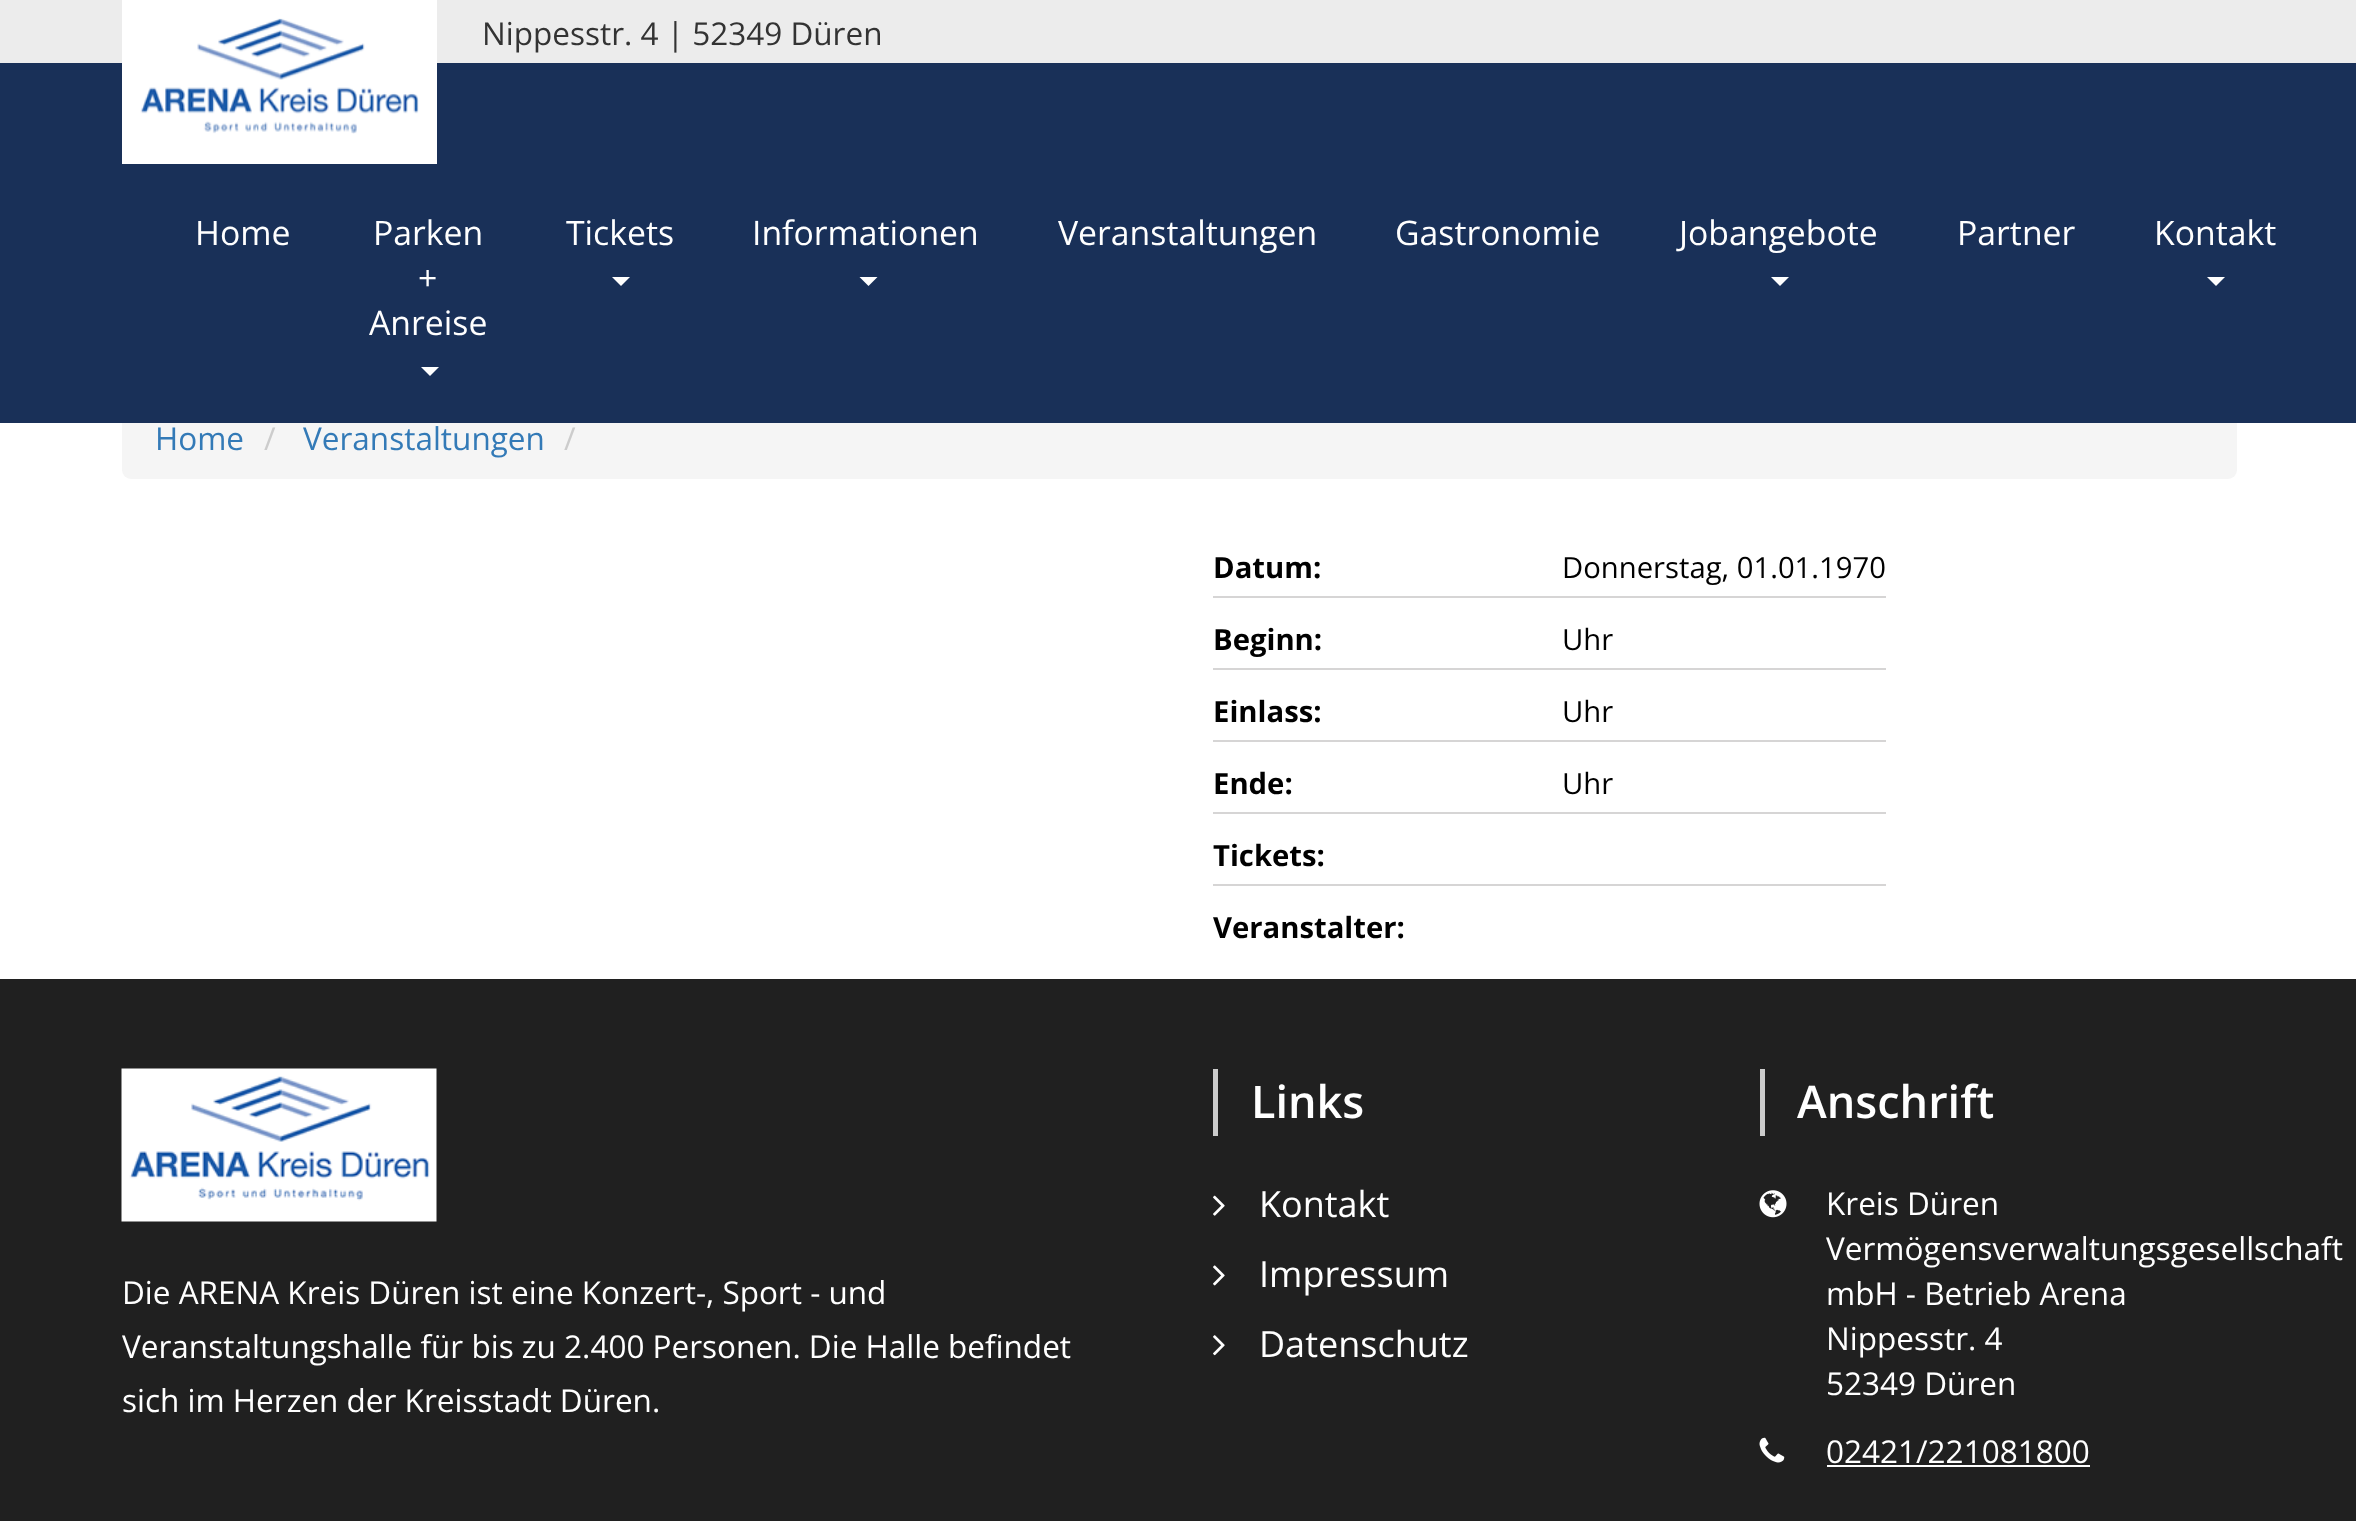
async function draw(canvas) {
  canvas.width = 2356
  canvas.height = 1521
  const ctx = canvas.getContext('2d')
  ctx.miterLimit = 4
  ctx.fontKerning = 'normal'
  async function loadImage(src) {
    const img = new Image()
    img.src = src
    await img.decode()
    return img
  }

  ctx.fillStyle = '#fff'
  ctx.fillRect(0, 0, 2356, 1521)
  ctx.fillStyle = '#ececec'
  ctx.fillRect(0, 0, 2356, 63)
  ctx.fillStyle = '#f5f5f5'
  ctx.beginPath()
  ctx.roundRect(122, 398, 2115, 81, 9)
  ctx.fill()
  ctx.fillStyle = '#193058'
  ctx.fillRect(0, 63, 2356, 360)
  ctx.fillStyle = '#fff'
  ctx.fillRect(122, 0, 315, 164)
  ctx.drawImage(await loadImage('image0.png'), 140, 18, 279, 116)
  ctx.font = '31.5px Open Sans'
  ctx.fillStyle = '#333'
  ctx.fillText('Nippesstr. 4 | 52349 Düren', 482, 45)
  ctx.font = '33.75px Open Sans'
  ctx.fillStyle = '#fff'
  ctx.fillText('Home', 195, 245)
  ctx.fillText('Parken', 373, 245)
  ctx.fillText('+', 418, 290)
  ctx.fillText('Anreise', 369, 335)
  ctx.beginPath()
  ctx.moveTo(421, 367)
  ctx.lineTo(439, 367)
  ctx.lineTo(430, 376)
  ctx.closePath()
  ctx.fill()
  ctx.fillText('Tickets', 566, 245)
  ctx.beginPath()
  ctx.moveTo(612, 277)
  ctx.lineTo(630, 277)
  ctx.lineTo(621, 286)
  ctx.closePath()
  ctx.fill()
  ctx.fillText('Informationen', 752, 245)
  ctx.beginPath()
  ctx.moveTo(859.5, 277)
  ctx.lineTo(877.5, 277)
  ctx.lineTo(868.5, 286)
  ctx.closePath()
  ctx.fill()
  ctx.fillText('Veranstaltungen', 1058, 245)
  ctx.fillText('Gastronomie', 1395, 245)
  ctx.fillText('Jobangebote', 1679, 245)
  ctx.beginPath()
  ctx.moveTo(1771, 277)
  ctx.lineTo(1789, 277)
  ctx.lineTo(1780, 286)
  ctx.closePath()
  ctx.fill()
  ctx.fillText('Partner', 1957, 245)
  ctx.fillText('Kontakt', 2154, 245)
  ctx.beginPath()
  ctx.moveTo(2207, 277)
  ctx.lineTo(2225, 277)
  ctx.lineTo(2216, 286)
  ctx.closePath()
  ctx.fill()
  ctx.font = '31.5px Open Sans'
  ctx.fillStyle = '#337ab7'
  ctx.fillText('Home', 155, 450)
  ctx.fillStyle = '#ccc'
  ctx.fillText('/', 264, 450)
  ctx.fillStyle = '#337ab7'
  ctx.fillText('Veranstaltungen', 303, 450)
  ctx.fillStyle = '#ccc'
  ctx.fillText('/', 564, 450)
  ctx.font = 'bold 29.25px Open Sans'
  ctx.fillStyle = '#000'
  ctx.fillText('Datum:', 1213, 578)
  ctx.fillStyle = '#d6d5d5'
  ctx.fillRect(1213, 596, 673, 2)
  ctx.font = '29.25px Open Sans'
  ctx.fillStyle = '#000'
  ctx.fillText('Donnerstag, 01.01.1970', 1562, 578)
  ctx.font = 'bold 29.25px Open Sans'
  ctx.fillText('Beginn:', 1213, 650)
  ctx.fillStyle = '#d6d5d5'
  ctx.fillRect(1213, 668, 673, 2)
  ctx.font = '29.25px Open Sans'
  ctx.fillStyle = '#000'
  ctx.fillText('Uhr', 1562, 650)
  ctx.font = 'bold 29.25px Open Sans'
  ctx.fillText('Einlass:', 1213, 722)
  ctx.fillStyle = '#d6d5d5'
  ctx.fillRect(1213, 740, 673, 2)
  ctx.font = '29.25px Open Sans'
  ctx.fillStyle = '#000'
  ctx.fillText('Uhr', 1562, 722)
  ctx.font = 'bold 29.25px Open Sans'
  ctx.fillText('Ende:', 1213, 794)
  ctx.fillStyle = '#d6d5d5'
  ctx.fillRect(1213, 812, 673, 2)
  ctx.font = '29.25px Open Sans'
  ctx.fillStyle = '#000'
  ctx.fillText('Uhr', 1562, 794)
  ctx.font = 'bold 29.25px Open Sans'
  ctx.fillText('Tickets:', 1213, 866)
  ctx.fillStyle = '#d6d5d5'
  ctx.fillRect(1213, 884, 673, 2)
  ctx.fillStyle = '#000'
  ctx.fillText('Veranstalter:', 1213, 938)
  ctx.fillStyle = '#202020'
  ctx.fillRect(0, 979, 2356, 542)
  ctx.drawImage(await loadImage('image1.png'), 121, 1068, 316, 154)
  ctx.font = '31.5px Open Sans'
  ctx.fillStyle = '#fff'
  ctx.fillText('Die ARENA Kreis Düren ist eine Konzert-, Sport - und', 122, 1304)
  ctx.fillText('Veranstaltungshalle für bis zu 2.400 Personen. Die Halle befindet', 122, 1358)
  ctx.fillText('sich im Herzen der Kreisstadt Düren.', 122, 1412)
  ctx.fillStyle = '#ccc'
  ctx.fillRect(1213, 1069, 5, 67)
  ctx.font = '600 45px Open Sans'
  ctx.fillStyle = '#fff'
  ctx.fillText('Links', 1251, 1118)
  ctx.drawImage(await loadImage('image2.png'), 1213, 1195, 12, 21)
  ctx.font = '36px Open Sans'
  ctx.fillText('Kontakt', 1259, 1217)
  ctx.drawImage(await loadImage('image3.png'), 1213, 1265, 12, 21)
  ctx.fillText('Impressum', 1259, 1287)
  ctx.drawImage(await loadImage('image4.png'), 1213, 1335, 12, 21)
  ctx.fillText('Datenschutz', 1259, 1357)
  ctx.fillStyle = '#ccc'
  ctx.fillRect(1760, 1069, 5, 67)
  ctx.font = '600 45px Open Sans'
  ctx.fillStyle = '#fff'
  ctx.fillText('Anschrift', 1797, 1118)
  ctx.drawImage(await loadImage('image5.png'), 1759, 1190, 28, 28)
  ctx.font = '31.5px Open Sans'
  ctx.fillText('Kreis Düren', 1826, 1215)
  ctx.fillText('Vermögensverwaltungsgesellschaft', 1826, 1260)
  ctx.fillText('mbH - Betrieb Arena', 1826, 1305)
  ctx.fillText('Nippesstr. 4', 1826, 1350)
  ctx.fillText('52349 Düren', 1826, 1395)
  ctx.drawImage(await loadImage('image6.png'), 1759, 1437, 26, 26)
  ctx.fillText('02421/221081800', 1826, 1463)
  ctx.fillRect(1827, 1465, 263, 2)
}

draw(document.querySelector('canvas'))
